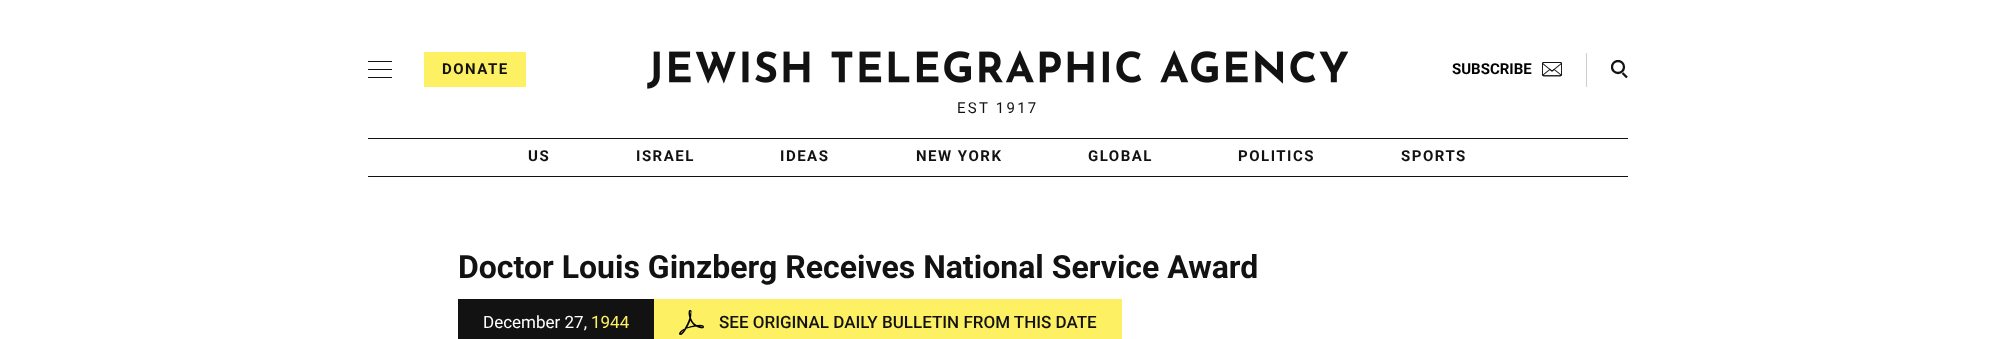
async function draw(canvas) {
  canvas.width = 1995
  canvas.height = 339
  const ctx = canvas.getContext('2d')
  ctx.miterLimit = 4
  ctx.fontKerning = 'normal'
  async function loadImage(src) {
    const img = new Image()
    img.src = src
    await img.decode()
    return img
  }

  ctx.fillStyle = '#fff'
  ctx.fillRect(0, 0, 1995, 339)
  ctx.fillStyle = '#121212'
  ctx.fillRect(368, 69, 24, 1)
  ctx.fillRect(368, 61, 24, 1)
  ctx.fillRect(368, 77, 24, 1)
  ctx.fillStyle = '#fdf062'
  ctx.fillRect(424, 52, 102, 35)
  ctx.letterSpacing = '1.5px'
  ctx.font = 'bold 15px Roboto'
  ctx.fillStyle = '#121212'
  ctx.fillText('DONATE', 442, 74)
  ctx.drawImage(await loadImage('image0.png'), 647, 50, 701, 39)
  ctx.fillStyle = '#cdcdcd'
  ctx.fillRect(1586, 53, 1, 34)
  ctx.letterSpacing = '0px'
  ctx.fillStyle = '#000'
  ctx.fillText('SUBSCRIBE', 1452, 74)
  ctx.drawImage(await loadImage('image1.png'), 1542, 62, 20, 15)
  ctx.beginPath()
  ctx.moveTo(1627, 77.5)
  ctx.lineTo(1622.5, 73)
  ctx.strokeStyle = '#121212'
  ctx.lineWidth = 2.3
  ctx.stroke()
  ctx.save()
  ctx.beginPath()
  ctx.rect(1611, 60, 17, 19)
  ctx.clip()
  ctx.beginPath()
  ctx.arc(1618, 67, 6, 0, 2 * Math.PI)
  ctx.stroke()
  ctx.restore()
  ctx.letterSpacing = '2.25px'
  ctx.font = '15px Roboto'
  ctx.fillStyle = '#121212'
  ctx.fillText('EST 1917', 957, 113)
  ctx.fillRect(368, 138, 1260, 1)
  ctx.fillRect(368, 176, 1260, 1)
  ctx.letterSpacing = '1.5px'
  ctx.font = 'bold 15px Roboto'
  ctx.fillText('US', 528, 161)
  ctx.fillText('ISRAEL', 636, 161)
  ctx.fillText('IDEAS', 780, 161)
  ctx.fillText('NEW YORK', 916, 161)
  ctx.fillText('GLOBAL', 1088, 161)
  ctx.fillText('POLITICS', 1238, 161)
  ctx.fillText('SPORTS', 1401, 161)
  ctx.letterSpacing = '0px'
  ctx.font = 'bold 32px Roboto'
  ctx.fillText('Doctor Louis Ginzberg Receives National Service Award', 458, 278)
  ctx.fillRect(458, 299, 196, 40)
  ctx.font = '17px Roboto'
  ctx.fillStyle = '#fff'
  ctx.fillText('December 27,', 483, 328)
  ctx.fillStyle = '#fdf062'
  ctx.fillText('1944', 591, 328)
  ctx.fillRect(654, 299, 468, 40)
  ctx.drawImage(await loadImage('image2.png'), 679, 310, 25, 25)
  ctx.font = '500 17px Roboto'
  ctx.fillStyle = '#121212'
  ctx.fillText('SEE ORIGINAL DAILY BULLETIN FROM THIS DATE', 719, 328)
}

draw(document.querySelector('canvas'))
